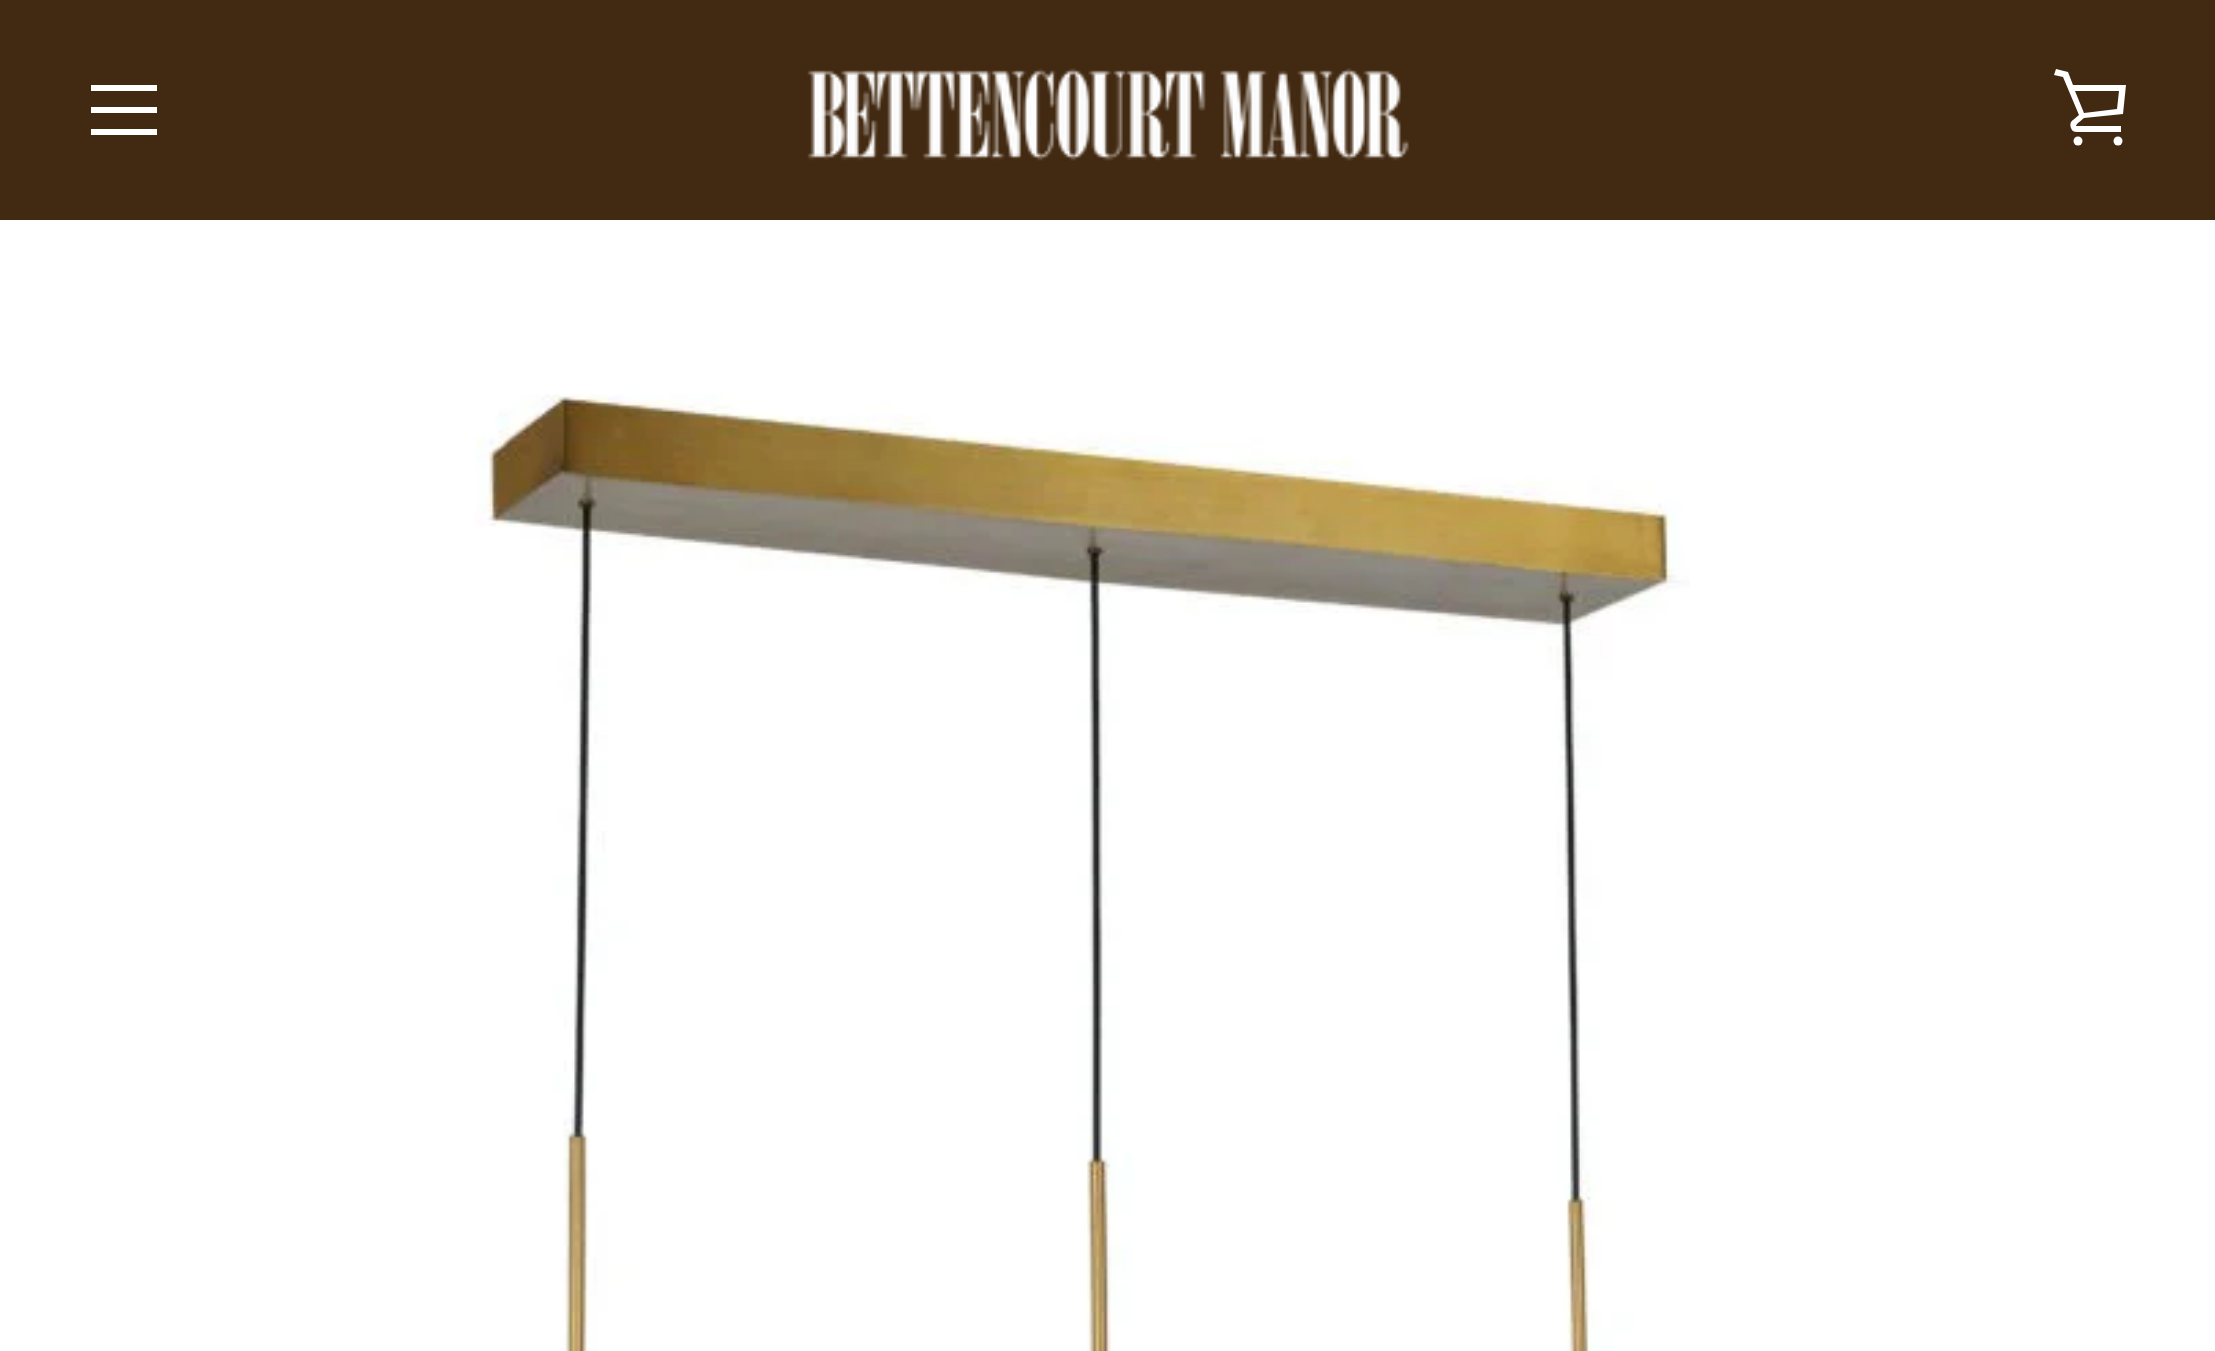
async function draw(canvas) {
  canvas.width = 2215
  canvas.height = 1351
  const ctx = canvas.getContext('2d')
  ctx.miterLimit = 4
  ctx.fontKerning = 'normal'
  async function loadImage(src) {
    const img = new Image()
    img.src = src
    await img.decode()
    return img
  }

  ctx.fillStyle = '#fff'
  ctx.fillRect(0, 0, 2215, 1351)
  ctx.fillStyle = '#422911'
  ctx.fillRect(0, 0, 2215, 220)
  ctx.fillStyle = '#fff'
  ctx.fillRect(91, 85, 66, 6)
  ctx.fillRect(91, 107, 66, 6)
  ctx.fillRect(91, 129, 66, 6)
  ctx.drawImage(await loadImage('image0.png'), 807, 68, 602, 93)
  ctx.beginPath()
  ctx.moveTo(2121, 132)
  ctx.lineTo(2121, 126)
  ctx.lineTo(2076, 126)
  ctx.bezierCurveTo(2076, 124, 2082, 120, 2084, 118)
  ctx.lineTo(2123, 114)
  ctx.lineTo(2126, 85)
  ctx.lineTo(2073, 85)
  ctx.lineTo(2068, 72)
  ctx.lineTo(2056, 69)
  ctx.lineTo(2054, 75)
  ctx.lineTo(2063, 77)
  ctx.lineTo(2079, 115)
  ctx.lineTo(2073, 120)
  ctx.bezierCurveTo(2070, 122, 2070, 125, 2071, 128)
  ctx.bezierCurveTo(2072, 131, 2074, 132, 2077, 132)
  ctx.closePath()
  ctx.moveTo(2075, 91)
  ctx.lineTo(2119, 91)
  ctx.lineTo(2117, 109)
  ctx.lineTo(2084, 113)
  ctx.closePath()
  ctx.fill()
  ctx.beginPath()
  ctx.arc(2078, 141, 4.5, 0, 2 * Math.PI)
  ctx.fill()
  ctx.beginPath()
  ctx.arc(2118, 141, 4.5, 0, 2 * Math.PI)
  ctx.fill()
  ctx.drawImage(await loadImage('image1.png'), 475, 394, 1215, 957)
}

draw(document.querySelector('canvas'))
